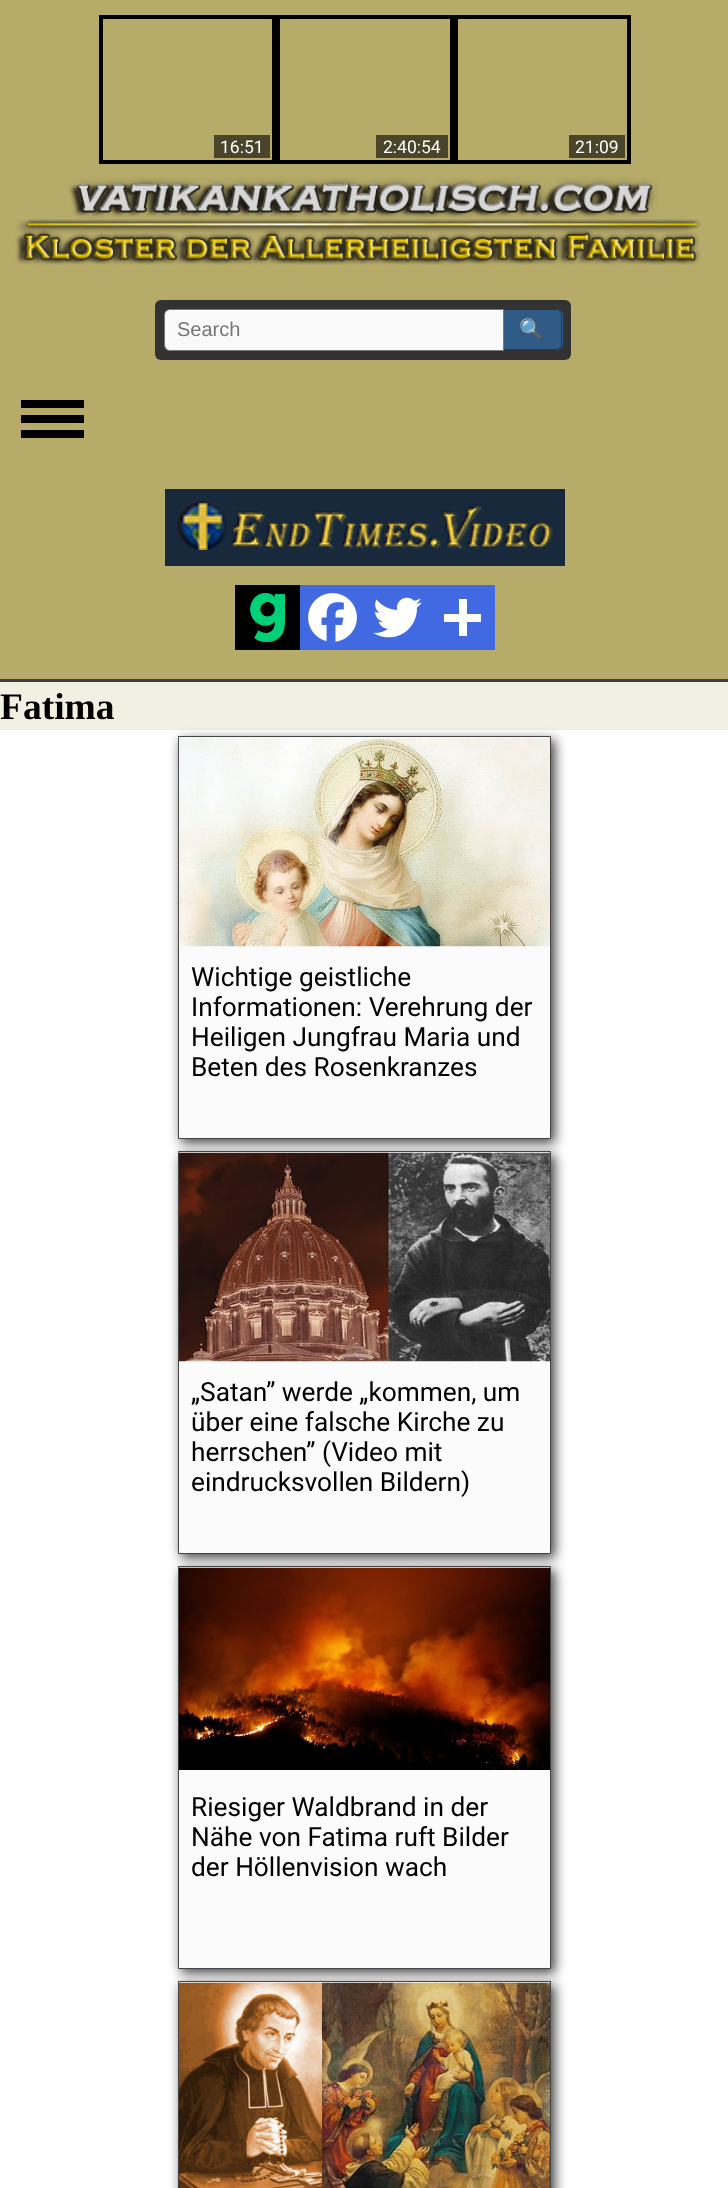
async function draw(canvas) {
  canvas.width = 728
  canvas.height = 2188
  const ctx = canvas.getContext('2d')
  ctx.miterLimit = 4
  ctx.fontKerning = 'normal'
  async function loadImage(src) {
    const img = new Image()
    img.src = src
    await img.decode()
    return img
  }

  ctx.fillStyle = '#b7ab6a'
  ctx.fillRect(0, 0, 728, 2188)
  ctx.strokeStyle = '#000'
  ctx.lineWidth = 4
  ctx.strokeRect(101, 17, 173, 145)
  ctx.fillStyle = '#49442a'
  ctx.fillRect(214, 135, 56, 23)
  ctx.font = '17.5px Roboto'
  ctx.fillStyle = '#fff'
  ctx.fillText('16:51', 220, 153)
  ctx.strokeRect(278, 17, 174, 145)
  ctx.fillStyle = '#49442a'
  ctx.fillRect(376, 135, 72, 23)
  ctx.fillStyle = '#fff'
  ctx.fillText('2:40:54', 383, 153)
  ctx.strokeRect(456, 17, 173, 145)
  ctx.fillStyle = '#49442a'
  ctx.fillRect(569, 135, 56, 23)
  ctx.fillStyle = '#fff'
  ctx.fillText('21:09', 575, 153)
  ctx.drawImage(await loadImage('image0.png'), 15, 177, 686, 88)
  ctx.fillStyle = '#323232'
  ctx.beginPath()
  ctx.roundRect(155, 300, 416, 60, 6)
  ctx.fill()
  ctx.fillStyle = '#fafafa'
  ctx.beginPath()
  ctx.roundRect(164.5, 309.5, 339, 41, [5.5, 0, 0, 5.5])
  ctx.fill()
  ctx.strokeStyle = '#787878'
  ctx.lineWidth = 1
  ctx.stroke()
  ctx.font = '20px Liberation Sans'
  ctx.fillStyle = '#757575'
  ctx.fillText('Search', 177, 336)
  ctx.fillStyle = '#315b87'
  ctx.beginPath()
  ctx.roundRect(504, 309, 59, 41, [0, 6, 6, 0])
  ctx.fill()
  ctx.fillStyle = '#183c5c'
  ctx.beginPath()
  ctx.moveTo(504, 309)
  ctx.lineTo(556, 309)
  ctx.bezierCurveTo(560, 309, 562, 312, 562, 315)
  ctx.lineTo(562, 344)
  ctx.bezierCurveTo(562, 347, 560, 350, 556, 350)
  ctx.lineTo(504, 350)
  ctx.closePath()
  ctx.moveTo(504, 310)
  ctx.lineTo(556, 310)
  ctx.bezierCurveTo(559, 310, 561, 312, 561, 315)
  ctx.lineTo(561, 344)
  ctx.bezierCurveTo(561, 347, 559, 349, 556, 349)
  ctx.lineTo(504, 349)
  ctx.closePath()
  ctx.fill('evenodd')
  ctx.font = '20px Noto Color Emoji'
  ctx.fillStyle = '#c8c8c8'
  ctx.fillText('🔍', 519, 336)
  ctx.fillStyle = '#000'
  ctx.fillRect(21, 400, 63, 8)
  ctx.fillRect(21, 415, 63, 8)
  ctx.fillRect(21, 430, 63, 8)
  ctx.fillStyle = '#17293b'
  ctx.fillRect(165, 489, 400, 77)
  ctx.drawImage(await loadImage('image1.png'), 177, 501, 376, 49)
  ctx.fillStyle = '#000'
  ctx.fillRect(235, 585, 65, 65)
  ctx.fillStyle = '#4169e1'
  ctx.fillRect(300, 585, 195, 65)
  ctx.drawImage(await loadImage('image2.png'), 250, 593, 35, 49)
  ctx.drawImage(await loadImage('image3.png'), 308, 593, 49, 49)
  ctx.drawImage(await loadImage('image4.png'), 373, 597, 49, 41)
  ctx.fillStyle = '#fff'
  ctx.fillRect(459, 599, 8, 37)
  ctx.fillRect(444, 614, 37, 8)
  ctx.fillStyle = '#f1f0e2'
  ctx.fillRect(0, 682, 728, 48)
  ctx.fillStyle = '#404040'
  ctx.fillRect(0, 679, 728, 3)
  ctx.font = 'bold 37.5px Liberation Serif'
  ctx.fillStyle = '#000'
  ctx.fillText('Fatima', 0, 719)
  ctx.fillStyle = '#fff'
  ctx.fillRect(0, 730, 728, 1458)
  ctx.fillStyle = '#444'
  ctx.filter = 'blur(6px)'
  ctx.beginPath()
  ctx.rect(181, 740, 374, 403)
  ctx.fill()
  ctx.filter = 'none'
  ctx.fillStyle = '#fbfbfb'
  ctx.beginPath()
  ctx.rect(178.5, 736.5, 372, 402)
  ctx.fill()
  ctx.strokeStyle = '#444'
  ctx.stroke()
  ctx.drawImage(await loadImage('image5.png'), 178, 737, 372, 210)
  ctx.font = '26.25px Roboto'
  ctx.fillStyle = '#000'
  ctx.fillText('Wichtige geistliche', 191, 986)
  ctx.fillText('Informationen: Verehrung der', 191, 1016)
  ctx.fillText('Heiligen Jungfrau Maria und', 191, 1046)
  ctx.fillText('Beten des Rosenkranzes', 191, 1076)
  ctx.fillStyle = '#444'
  ctx.filter = 'blur(6px)'
  ctx.beginPath()
  ctx.rect(181, 1155, 374, 403)
  ctx.fill()
  ctx.filter = 'none'
  ctx.fillStyle = '#fbfbfb'
  ctx.beginPath()
  ctx.rect(178.5, 1151.5, 372, 402)
  ctx.fill()
  ctx.stroke()
  ctx.drawImage(await loadImage('image6.png'), 178, 1152, 372, 210)
  ctx.fillStyle = '#000'
  ctx.fillText('„Satan” werde „kommen, um', 191, 1401)
  ctx.fillText('über eine falsche Kirche zu', 191, 1431)
  ctx.fillText('herrschen” (Video mit', 191, 1461)
  ctx.fillText('eindrucksvollen Bildern)', 191, 1491)
  ctx.fillStyle = '#444'
  ctx.filter = 'blur(6px)'
  ctx.beginPath()
  ctx.rect(181, 1570, 374, 403)
  ctx.fill()
  ctx.filter = 'none'
  ctx.fillStyle = '#fbfbfb'
  ctx.beginPath()
  ctx.rect(178.5, 1566.5, 372, 402)
  ctx.fill()
  ctx.stroke()
  ctx.drawImage(await loadImage('image7.png'), 178, 1567, 372, 203)
  ctx.fillStyle = '#000'
  ctx.fillText('Riesiger Waldbrand in der', 191, 1816)
  ctx.fillText('Nähe von Fatima ruft Bilder', 191, 1846)
  ctx.fillText('der Höllenvision wach', 191, 1876)
  ctx.fillStyle = '#444'
  ctx.filter = 'blur(6px)'
  ctx.beginPath()
  ctx.rect(181, 1985, 374, 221)
  ctx.fill()
  ctx.filter = 'none'
  ctx.fillStyle = '#fbfbfb'
  ctx.fillRect(179, 1982, 371, 1)
  ctx.strokeRect(178.5, 1981.5, 372, 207)
  ctx.drawImage(await loadImage('image8.png'), 178, 1982, 372, 206)
}

draw(document.querySelector('canvas'))
